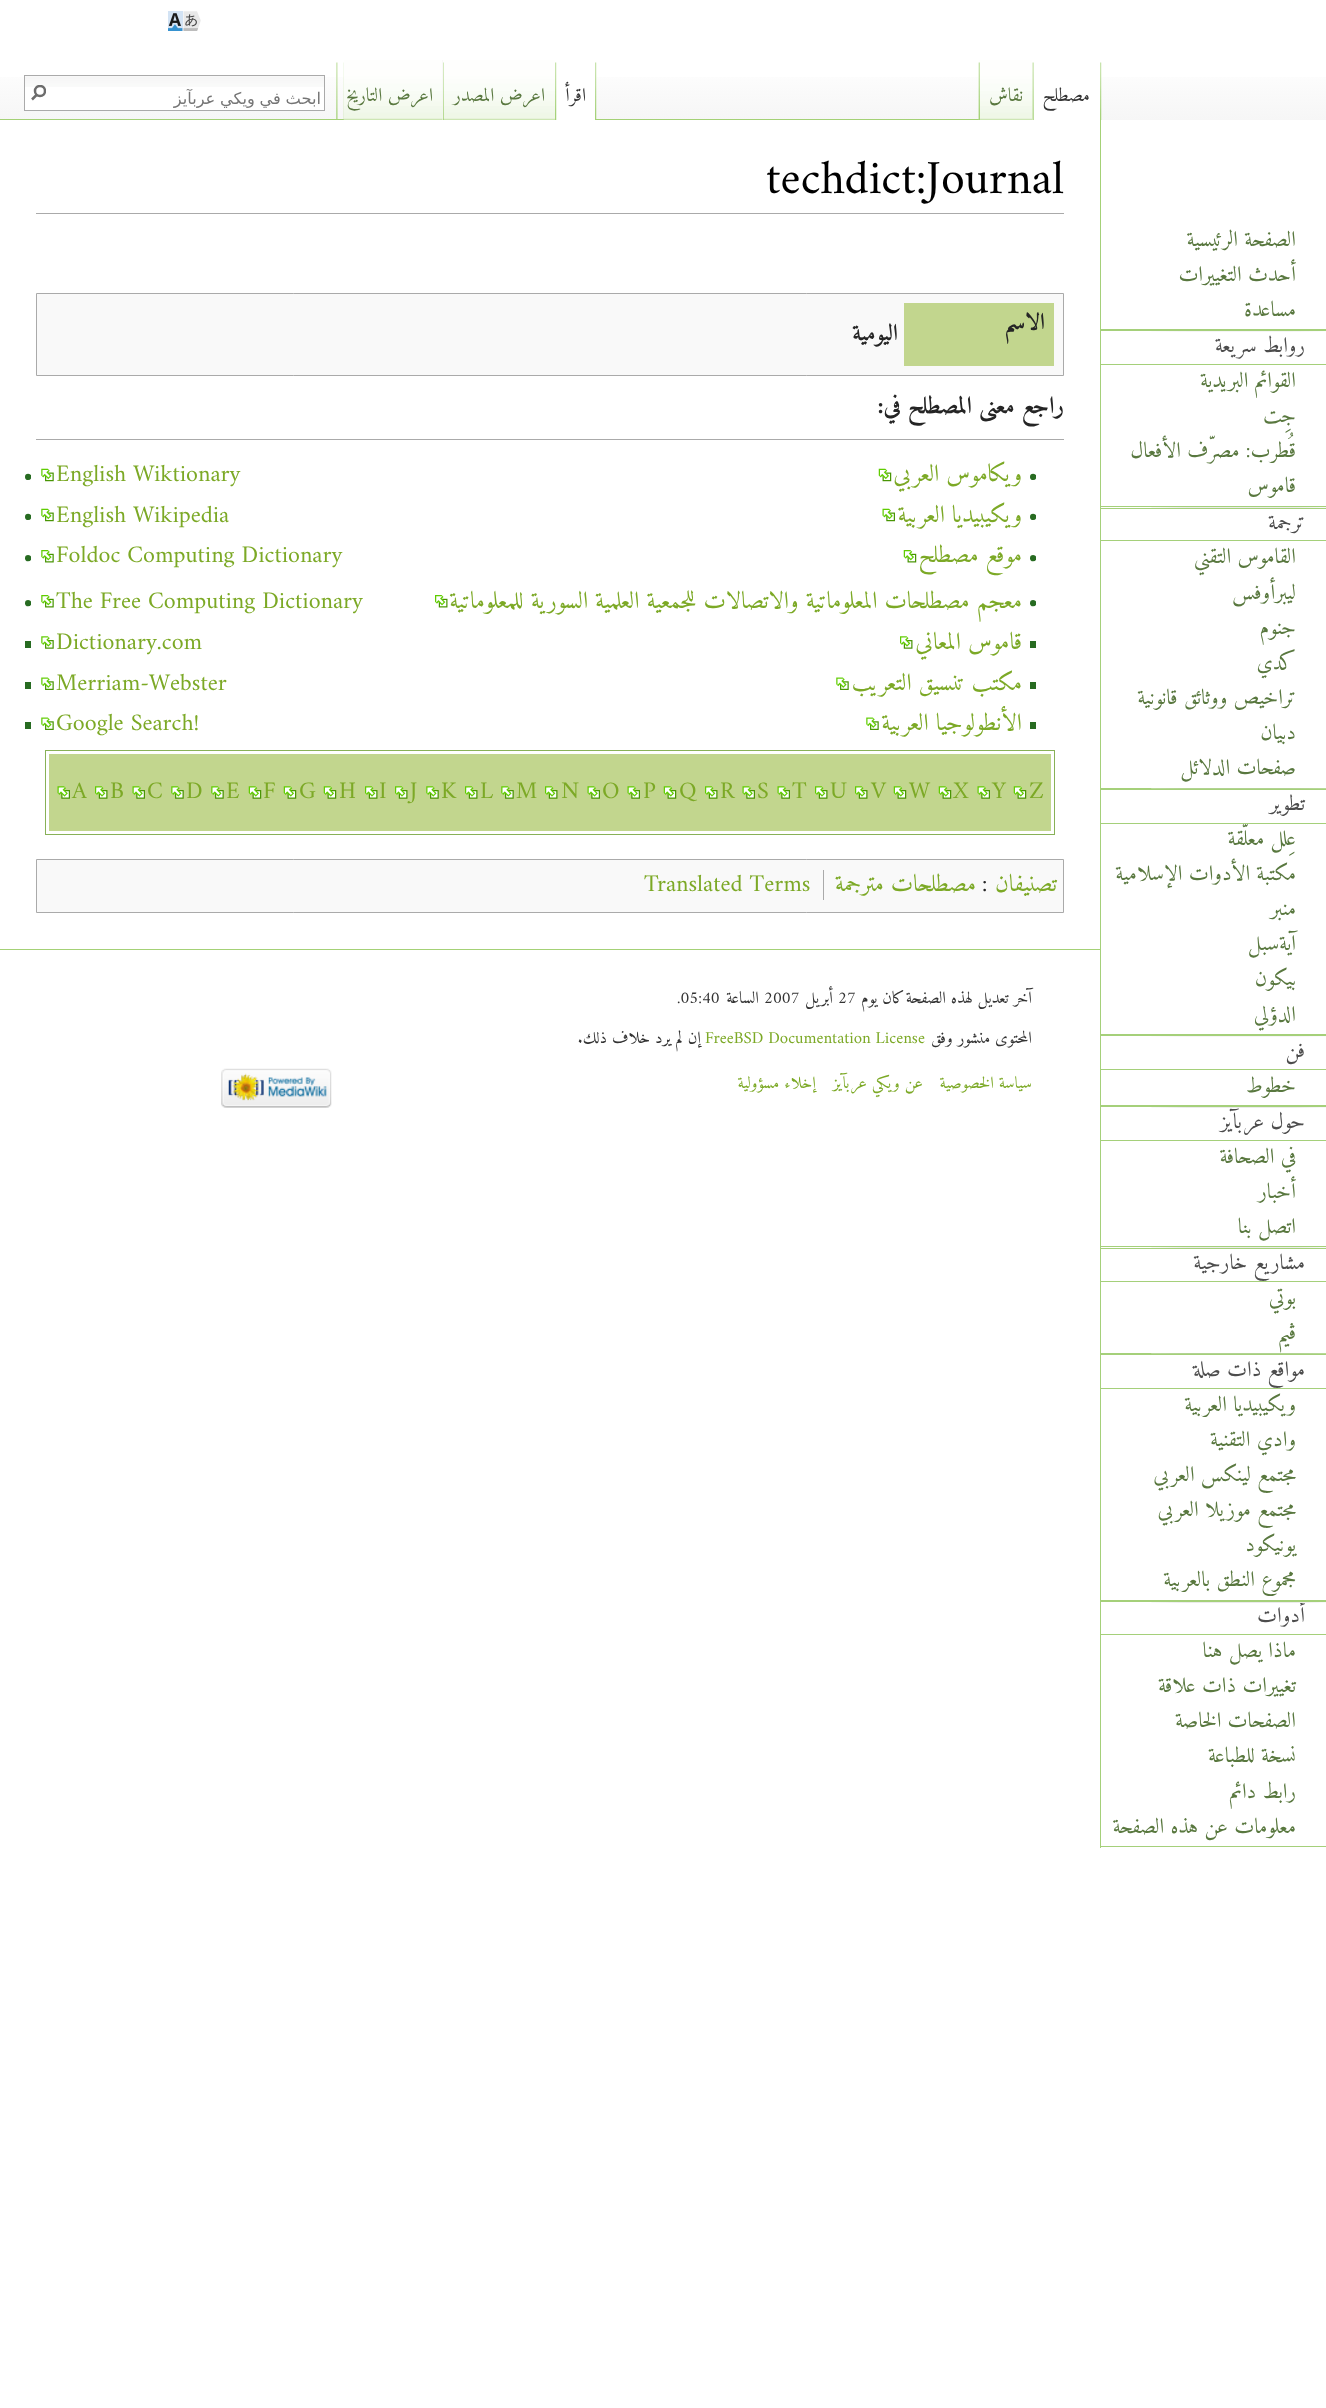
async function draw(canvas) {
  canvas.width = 1326
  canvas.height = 2408
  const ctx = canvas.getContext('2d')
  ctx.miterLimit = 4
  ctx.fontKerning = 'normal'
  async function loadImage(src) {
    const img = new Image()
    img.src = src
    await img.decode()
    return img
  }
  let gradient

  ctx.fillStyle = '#fff'
  ctx.fillRect(0, 0, 1326, 2408)
  gradient = ctx.createLinearGradient(663, 0, 663, 120)
  gradient.addColorStop(0.5, '#fff')
  gradient.addColorStop(1, '#f6f6f6')
  ctx.fillStyle = gradient
  ctx.fillRect(0, 77, 1326, 43)
  ctx.drawImage(await loadImage('image0.png'), 168, 11, 33, 20)
  ctx.fillStyle = '#a4d176'
  ctx.fillRect(1100, 119, 1, 105)
  ctx.drawImage(await loadImage('image1.png'), 1100, 62, 2, 58)
  ctx.drawImage(await loadImage('image2.png'), 978, 62, 1, 57)
  ctx.fillStyle = '#fff'
  ctx.fillRect(1032, 77, 68, 43)
  ctx.drawImage(await loadImage('image3.png'), 1032, 62, 2, 58)
  ctx.direction = 'rtl'
  ctx.font = '19px Amiri'
  ctx.fillStyle = '#333'
  ctx.fillText('مصطلح', 1090, 101)
  ctx.fillStyle = '#a4d176'
  ctx.fillRect(0, 119, 979, 1)
  ctx.drawImage(await loadImage('image4.png'), 978, 60, 54, 60)
  ctx.drawImage(await loadImage('image5.png'), 978, 62, 2, 58)
  ctx.fillStyle = '#59783f'
  ctx.fillText('نقاش', 1023, 101)
  ctx.drawImage(await loadImage('image6.png'), 595, 62, 2, 57)
  ctx.drawImage(await loadImage('image2.png'), 343, 62, 1, 57)
  ctx.fillStyle = '#fff'
  ctx.fillRect(555, 77, 40, 43)
  ctx.drawImage(await loadImage('image7.png'), 555, 62, 2, 58)
  ctx.fillStyle = '#333'
  ctx.fillText('اقرأ', 586, 101)
  ctx.drawImage(await loadImage('image8.png'), 443, 60, 112, 60)
  ctx.drawImage(await loadImage('image9.png'), 443, 62, 1, 58)
  ctx.fillStyle = '#59783f'
  ctx.fillText('اعرض المصدر', 545, 101)
  ctx.fillStyle = '#f3f3f3'
  ctx.fillRect(442, 60, 1, 60)
  ctx.drawImage(await loadImage('image10.png'), 343, 60, 100, 60)
  ctx.fillStyle = '#59783f'
  ctx.fillText('اعرض التاريخ', 433, 101)
  ctx.drawImage(await loadImage('image11.png'), 336, 62, 2, 57)
  ctx.fillStyle = '#fff'
  ctx.fillRect(25, 77, 299, 33)
  ctx.drawImage(await loadImage('image12.png'), 25, 76, 299, 11)
  ctx.strokeStyle = '#aaa'
  ctx.strokeRect(24.5, 75.5, 300, 35)
  ctx.save()
  ctx.beginPath()
  ctx.rect(75, 89, 246, 19)
  ctx.clip()
  ctx.wordSpacing = '-0.5px'
  ctx.font = '16.25px DejaVu Sans'
  ctx.fillStyle = '#757575'
  ctx.fillText('ابحث في ويكي عربآيز', 321, 104)
  ctx.restore()
  ctx.beginPath()
  ctx.moveTo(32, 99.5)
  ctx.lineTo(37, 94.5)
  ctx.strokeStyle = '#6c6c6c'
  ctx.lineWidth = 2.5
  ctx.stroke()
  ctx.save()
  ctx.beginPath()
  ctx.rect(31, 85, 15, 16)
  ctx.clip()
  ctx.beginPath()
  ctx.arc(40, 91, 5, 0, 2 * Math.PI)
  ctx.stroke()
  ctx.restore()
  ctx.fillStyle = '#a5d07a'
  ctx.fillRect(1100, 329, 226, 1)
  ctx.fillRect(1100, 224, 1, 106)
  ctx.font = '21.5px Amiri'
  ctx.fillStyle = '#59783f'
  ctx.fillText('الصفحة الرئيسية', 1296, 246)
  ctx.fillText('أحدث التغييرات', 1296, 281)
  ctx.fillText('مساعدة', 1296, 316)
  ctx.drawImage(await loadImage('image13.png'), 1151, 331, 175, 1)
  ctx.fillStyle = '#a5d07a'
  ctx.fillRect(1100, 506, 226, 1)
  ctx.fillRect(1100, 330, 1, 178)
  ctx.fillRect(1101, 330, 225, 1)
  ctx.fillRect(1101, 364, 225, 1)
  ctx.fillStyle = '#4d4d4d'
  ctx.fillText('روابط سريعة', 1305, 352)
  ctx.fillStyle = '#59783f'
  ctx.fillText('القوائم البريدية', 1296, 387)
  ctx.fillText('جِت', 1296, 422)
  ctx.fillText('قُطرب: مصرّف الأفعال', 1296, 457)
  ctx.fillText('قاموس', 1296, 492)
  ctx.drawImage(await loadImage('image14.png'), 1151, 507, 175, 1)
  ctx.fillStyle = '#a5d07a'
  ctx.fillRect(1100, 788, 226, 1)
  ctx.fillRect(1100, 508, 1, 281)
  ctx.fillRect(1101, 508, 225, 1)
  ctx.fillRect(1101, 540, 225, 1)
  ctx.fillStyle = '#4d4d4d'
  ctx.fillText('ترجمة', 1305, 529)
  ctx.fillStyle = '#59783f'
  ctx.fillText('القاموس التقني', 1296, 563)
  ctx.fillText('ليبرأوفس', 1296, 599)
  ctx.fillText('جنوم', 1296, 634)
  ctx.fillText('كدي', 1296, 669)
  ctx.fillText('تراخيص ووثائق قانونية', 1296, 704)
  ctx.fillText('دبيان', 1296, 739)
  ctx.fillText('صفحات الدلائل', 1296, 774)
  ctx.drawImage(await loadImage('image15.png'), 1151, 788, 175, 1)
  ctx.fillStyle = '#a5d07a'
  ctx.fillRect(1100, 1034, 226, 1)
  ctx.fillStyle = '#a4d176'
  ctx.fillRect(0, 949, 1101, 1)
  ctx.fillStyle = '#a5d07a'
  ctx.fillRect(1100, 789, 1, 246)
  ctx.fillRect(1101, 789, 225, 1)
  ctx.fillStyle = '#59783f'
  ctx.fillText('عِلل معلّقة', 1296, 845)
  ctx.fillStyle = '#a5d07a'
  ctx.fillRect(1101, 823, 225, 1)
  ctx.fillStyle = '#4d4d4d'
  ctx.fillText('تطوير', 1305, 810)
  ctx.fillStyle = '#59783f'
  ctx.fillText('مكتبة الأدوات الإسلامية', 1296, 880)
  ctx.fillText('منبر', 1296, 915)
  ctx.fillText('آية‌سبل', 1296, 950)
  ctx.fillText('بيكون', 1296, 985)
  ctx.fillText('الدؤلي', 1296, 1021)
  ctx.drawImage(await loadImage('image13.png'), 1151, 1036, 175, 1)
  ctx.fillStyle = '#a5d07a'
  ctx.fillRect(1100, 1105, 226, 1)
  ctx.fillRect(1100, 1035, 1, 71)
  ctx.fillRect(1101, 1035, 225, 1)
  ctx.fillRect(1101, 1069, 225, 1)
  ctx.fillStyle = '#4d4d4d'
  ctx.fillText('فن', 1305, 1057)
  ctx.fillStyle = '#59783f'
  ctx.fillText('خطوط', 1296, 1092)
  ctx.drawImage(await loadImage('image14.png'), 1151, 1107, 175, 1)
  ctx.fillStyle = '#a5d07a'
  ctx.fillRect(1100, 1246, 226, 1)
  ctx.fillRect(1100, 1106, 1, 142)
  ctx.fillRect(1101, 1106, 225, 1)
  ctx.fillRect(1101, 1140, 225, 1)
  ctx.fillStyle = '#4d4d4d'
  ctx.fillText('حول عربآيز', 1305, 1128)
  ctx.fillStyle = '#59783f'
  ctx.fillText('في الصحافة', 1296, 1163)
  ctx.fillText('أخبار', 1296, 1198)
  ctx.fillText('اتصل بنا', 1296, 1233)
  ctx.drawImage(await loadImage('image14.png'), 1151, 1247, 175, 1)
  ctx.fillStyle = '#a5d07a'
  ctx.fillRect(1100, 1353, 226, 1)
  ctx.fillRect(1100, 1248, 1, 106)
  ctx.fillRect(1101, 1248, 225, 1)
  ctx.fillRect(1101, 1281, 225, 1)
  ctx.fillStyle = '#4d4d4d'
  ctx.fillText('مشاريع خارجية', 1305, 1269)
  ctx.fillStyle = '#59783f'
  ctx.fillText('بوتي', 1296, 1304)
  ctx.fillText('ڤيم', 1296, 1339)
  ctx.drawImage(await loadImage('image15.png'), 1151, 1353, 175, 1)
  ctx.fillStyle = '#a5d07a'
  ctx.fillRect(1100, 1600, 226, 1)
  ctx.fillRect(1100, 1354, 1, 247)
  ctx.fillRect(1101, 1354, 225, 1)
  ctx.fillRect(1101, 1388, 225, 1)
  ctx.fillStyle = '#4d4d4d'
  ctx.fillText('مواقع ذات صلة', 1305, 1376)
  ctx.fillStyle = '#59783f'
  ctx.fillText('ويكيبيديا العربية', 1296, 1411)
  ctx.fillText('وادي التقنية', 1296, 1446)
  ctx.fillText('مجتمع لينكس العربي', 1296, 1481)
  ctx.fillText('مجتمع موزيلا العربي', 1296, 1516)
  ctx.fillText('يونيكود', 1296, 1551)
  ctx.fillText('مجموع النطق بالعربية', 1296, 1586)
  ctx.drawImage(await loadImage('image14.png'), 1151, 1602, 175, 1)
  ctx.fillStyle = '#a5d07a'
  ctx.fillRect(1100, 1846, 226, 1)
  ctx.fillRect(1100, 1601, 1, 247)
  ctx.fillRect(1101, 1601, 225, 1)
  ctx.fillRect(1101, 1634, 225, 1)
  ctx.save()
  ctx.beginPath()
  ctx.rect(1101, 1603, 225, 31)
  ctx.clip()
  ctx.fillStyle = '#4d4d4d'
  ctx.fillText('أدوات', 1305, 1622)
  ctx.restore()
  ctx.fillStyle = '#59783f'
  ctx.fillText('ماذا يصل هنا', 1296, 1657)
  ctx.fillText('تغييرات ذات علاقة', 1296, 1692)
  ctx.fillText('الصفحات الخاصة', 1296, 1727)
  ctx.fillText('نسخة للطباعة', 1296, 1762)
  ctx.fillText('رابط دائم', 1296, 1798)
  ctx.fillText('معلومات عن هذه الصفحة', 1296, 1833)
  ctx.fillStyle = '#aaa'
  ctx.fillRect(36, 213, 1028, 1)
  ctx.direction = 'ltr'
  ctx.font = '48px Amiri'
  ctx.fillStyle = '#000'
  ctx.fillText('techdict:Journal', 766, 193)
  ctx.fillStyle = '#f9f9f9'
  ctx.beginPath()
  ctx.rect(36.5, 293.5, 1027, 82)
  ctx.fill()
  ctx.strokeStyle = '#aaa'
  ctx.lineWidth = 1
  ctx.stroke()
  ctx.fillStyle = '#c2d68e'
  ctx.fillRect(904, 303, 150, 63)
  ctx.direction = 'rtl'
  ctx.font = 'bold 23px Amiri'
  ctx.fillStyle = '#252525'
  ctx.fillText('الاسم', 1045, 329)
  ctx.fillText('اليومية', 898, 340)
  ctx.font = 'bold 24px Amiri'
  ctx.fillText('راجع معنى المصطلح في:', 1064, 413)
  ctx.fillStyle = '#aaa'
  ctx.fillRect(36, 439, 1028, 1)
  ctx.drawImage(await loadImage('image16.png'), 1030, 473, 6, 7)
  ctx.font = '24px Amiri'
  ctx.fillStyle = '#7ca926'
  ctx.fillText('ويكاموس العربي', 1022, 481)
  ctx.drawImage(await loadImage('image17.png'), 878, 468, 14, 14)
  ctx.drawImage(await loadImage('image18.png'), 1030, 513, 6, 7)
  ctx.fillText('ويكيبيديا العربية', 1022, 522)
  ctx.drawImage(await loadImage('image19.png'), 882, 508, 13, 14)
  ctx.drawImage(await loadImage('image20.png'), 1030, 555, 6, 7)
  ctx.fillText('موقع مصطلح', 1022, 562)
  ctx.drawImage(await loadImage('image21.png'), 903, 550, 14, 13)
  ctx.drawImage(await loadImage('image20.png'), 1030, 600, 6, 7)
  ctx.fillText('معجم مصطلحات المعلوماتية والاتصالات للجمعية العلمية السورية للمعلوماتية', 1022, 608)
  ctx.drawImage(await loadImage('image22.png'), 435, 595, 13, 13)
  ctx.fillStyle = '#276b21'
  ctx.fillRect(1030, 641, 6, 7)
  ctx.fillStyle = '#7ca926'
  ctx.fillText('قاموس المعاني', 1022, 649)
  ctx.drawImage(await loadImage('image23.png'), 900, 636, 13, 13)
  ctx.fillStyle = '#276b21'
  ctx.fillRect(1030, 682, 6, 7)
  ctx.fillStyle = '#7ca926'
  ctx.fillText('مكتب تنسيق التعريب', 1022, 690)
  ctx.drawImage(await loadImage('image24.png'), 836, 677, 13, 13)
  ctx.fillStyle = '#276b21'
  ctx.fillRect(1030, 722, 6, 7)
  ctx.fillStyle = '#7ca926'
  ctx.fillText('الأنطولوجيا العربية', 1022, 730)
  ctx.drawImage(await loadImage('image24.png'), 866, 717, 13, 13)
  ctx.drawImage(await loadImage('image16.png'), 25, 473, 6, 7)
  ctx.direction = 'ltr'
  ctx.fillText('English Wiktionary', 56, 481)
  ctx.drawImage(await loadImage('image25.png'), 41, 468, 13, 14)
  ctx.drawImage(await loadImage('image18.png'), 25, 513, 6, 7)
  ctx.fillText('English Wikipedia', 56, 522)
  ctx.drawImage(await loadImage('image25.png'), 41, 508, 13, 14)
  ctx.drawImage(await loadImage('image20.png'), 25, 555, 6, 7)
  ctx.fillText('Foldoc Computing Dictionary', 56, 562)
  ctx.drawImage(await loadImage('image26.png'), 41, 550, 13, 13)
  ctx.drawImage(await loadImage('image20.png'), 25, 600, 6, 7)
  ctx.fillText('The Free Computing Dictionary', 56, 608)
  ctx.drawImage(await loadImage('image26.png'), 41, 595, 13, 13)
  ctx.fillStyle = '#276b21'
  ctx.fillRect(25, 641, 6, 7)
  ctx.fillStyle = '#7ca926'
  ctx.fillText('Dictionary.com', 56, 649)
  ctx.drawImage(await loadImage('image27.png'), 41, 636, 13, 13)
  ctx.fillStyle = '#276b21'
  ctx.fillRect(25, 682, 6, 7)
  ctx.fillStyle = '#7ca926'
  ctx.fillText('Merriam-Webster', 56, 690)
  ctx.drawImage(await loadImage('image24.png'), 41, 677, 13, 13)
  ctx.fillStyle = '#276b21'
  ctx.fillRect(25, 722, 6, 7)
  ctx.fillStyle = '#7ca926'
  ctx.fillText('Google Search!', 56, 730)
  ctx.drawImage(await loadImage('image24.png'), 41, 717, 13, 13)
  ctx.strokeStyle = '#88b157'
  ctx.strokeRect(45.5, 750.5, 1009, 84)
  ctx.fillStyle = '#c2d68e'
  ctx.fillRect(49, 754, 1002, 77)
  ctx.fillStyle = '#7ca926'
  ctx.fillText('Z', 1029, 798)
  ctx.drawImage(await loadImage('image28.png'), 1013, 786, 14, 13)
  ctx.fillText('Y', 992, 798)
  ctx.drawImage(await loadImage('image29.png'), 977, 786, 13, 13)
  ctx.fillText('X', 953, 798)
  ctx.drawImage(await loadImage('image28.png'), 938, 786, 14, 13)
  ctx.fillText('W', 909, 798)
  ctx.drawImage(await loadImage('image28.png'), 893, 786, 14, 13)
  ctx.fillText('V', 871, 798)
  ctx.drawImage(await loadImage('image30.png'), 855, 786, 13, 13)
  ctx.fillText('U', 830, 798)
  ctx.drawImage(await loadImage('image30.png'), 815, 786, 13, 13)
  ctx.fillText('T', 792, 798)
  ctx.drawImage(await loadImage('image29.png'), 777, 786, 13, 13)
  ctx.fillText('S', 757, 798)
  ctx.drawImage(await loadImage('image29.png'), 742, 786, 13, 13)
  ctx.fillText('R', 720, 798)
  ctx.drawImage(await loadImage('image30.png'), 705, 786, 13, 13)
  ctx.fillText('Q', 679, 798)
  ctx.drawImage(await loadImage('image28.png'), 663, 786, 14, 13)
  ctx.fillText('P', 643, 798)
  ctx.drawImage(await loadImage('image29.png'), 627, 786, 13, 13)
  ctx.fillText('O', 602, 798)
  ctx.drawImage(await loadImage('image29.png'), 587, 786, 13, 13)
  ctx.fillText('N', 561, 798)
  ctx.drawImage(await loadImage('image30.png'), 545, 786, 13, 13)
  ctx.fillText('M', 516, 798)
  ctx.drawImage(await loadImage('image31.png'), 501, 786, 13, 13)
  ctx.fillText('L', 480, 798)
  ctx.drawImage(await loadImage('image30.png'), 465, 786, 13, 13)
  ctx.fillText('K', 441, 798)
  ctx.drawImage(await loadImage('image31.png'), 426, 786, 13, 13)
  ctx.drawImage(await loadImage('image30.png'), 395, 786, 13, 13)
  ctx.fillText('J', 410, 798)
  ctx.fillText('I', 379, 798)
  ctx.drawImage(await loadImage('image30.png'), 365, 786, 13, 13)
  ctx.fillText('H', 339, 798)
  ctx.drawImage(await loadImage('image28.png'), 323, 786, 14, 13)
  ctx.fillText('G', 299, 798)
  ctx.drawImage(await loadImage('image28.png'), 283, 786, 14, 13)
  ctx.fillText('F', 263, 798)
  ctx.drawImage(await loadImage('image28.png'), 248, 786, 14, 13)
  ctx.fillText('E', 226, 798)
  ctx.drawImage(await loadImage('image31.png'), 211, 786, 13, 13)
  ctx.fillText('D', 186, 798)
  ctx.drawImage(await loadImage('image31.png'), 171, 786, 13, 13)
  ctx.fillText('C', 147, 798)
  ctx.drawImage(await loadImage('image29.png'), 132, 786, 13, 13)
  ctx.fillText('B', 110, 798)
  ctx.drawImage(await loadImage('image30.png'), 95, 786, 13, 13)
  ctx.fillText('A', 72, 798)
  ctx.drawImage(await loadImage('image29.png'), 57, 786, 13, 13)
  ctx.fillStyle = '#f9f9f9'
  ctx.beginPath()
  ctx.rect(36.5, 859.5, 1027, 53)
  ctx.fill()
  ctx.strokeStyle = '#aaa'
  ctx.stroke()
  ctx.direction = 'rtl'
  ctx.fillStyle = '#7ca926'
  ctx.fillText('تصنيفان', 1057, 891)
  ctx.direction = 'ltr'
  ctx.fillStyle = '#252525'
  ctx.fillText(':', 982, 891)
  ctx.direction = 'rtl'
  ctx.fillStyle = '#7ca926'
  ctx.fillText('مصطلحات مترجمة', 976, 891)
  ctx.fillStyle = '#aaa'
  ctx.fillRect(823, 870, 1, 30)
  ctx.direction = 'ltr'
  ctx.fillStyle = '#7ca926'
  ctx.fillText('Translated Terms', 644, 891)
  ctx.direction = 'rtl'
  ctx.font = '16.75px Amiri'
  ctx.fillStyle = '#333'
  ctx.fillText('آخر تعديل لهذه الصفحة كان يوم', 1032, 1003)
  ctx.direction = 'ltr'
  ctx.fillText('27', 838, 1003)
  ctx.direction = 'rtl'
  ctx.fillText('أبريل', 833, 1003)
  ctx.direction = 'ltr'
  ctx.fillText('2007', 764, 1003)
  ctx.direction = 'rtl'
  ctx.fillText('الساعة', 759, 1003)
  ctx.direction = 'ltr'
  ctx.fillText('.05:40', 677, 1003)
  ctx.direction = 'rtl'
  ctx.fillText('المحتوى منشور وفق', 1032, 1043)
  ctx.direction = 'ltr'
  ctx.fillStyle = '#7ca926'
  ctx.fillText('FreeBSD Documentation License', 705, 1043)
  ctx.direction = 'rtl'
  ctx.fillStyle = '#333'
  ctx.fillText('إن لم يرد خلاف ذلك.', 701, 1043)
  ctx.fillStyle = '#7ca926'
  ctx.fillText('سياسة الخصوصية', 1032, 1088)
  ctx.fillText('عن ويكي عربآيز', 923, 1088)
  ctx.fillText('إخلاء مسؤولية', 816, 1088)
  ctx.drawImage(await loadImage('image32.png'), 221, 1068, 111, 40)
}

draw(document.querySelector('canvas'))
